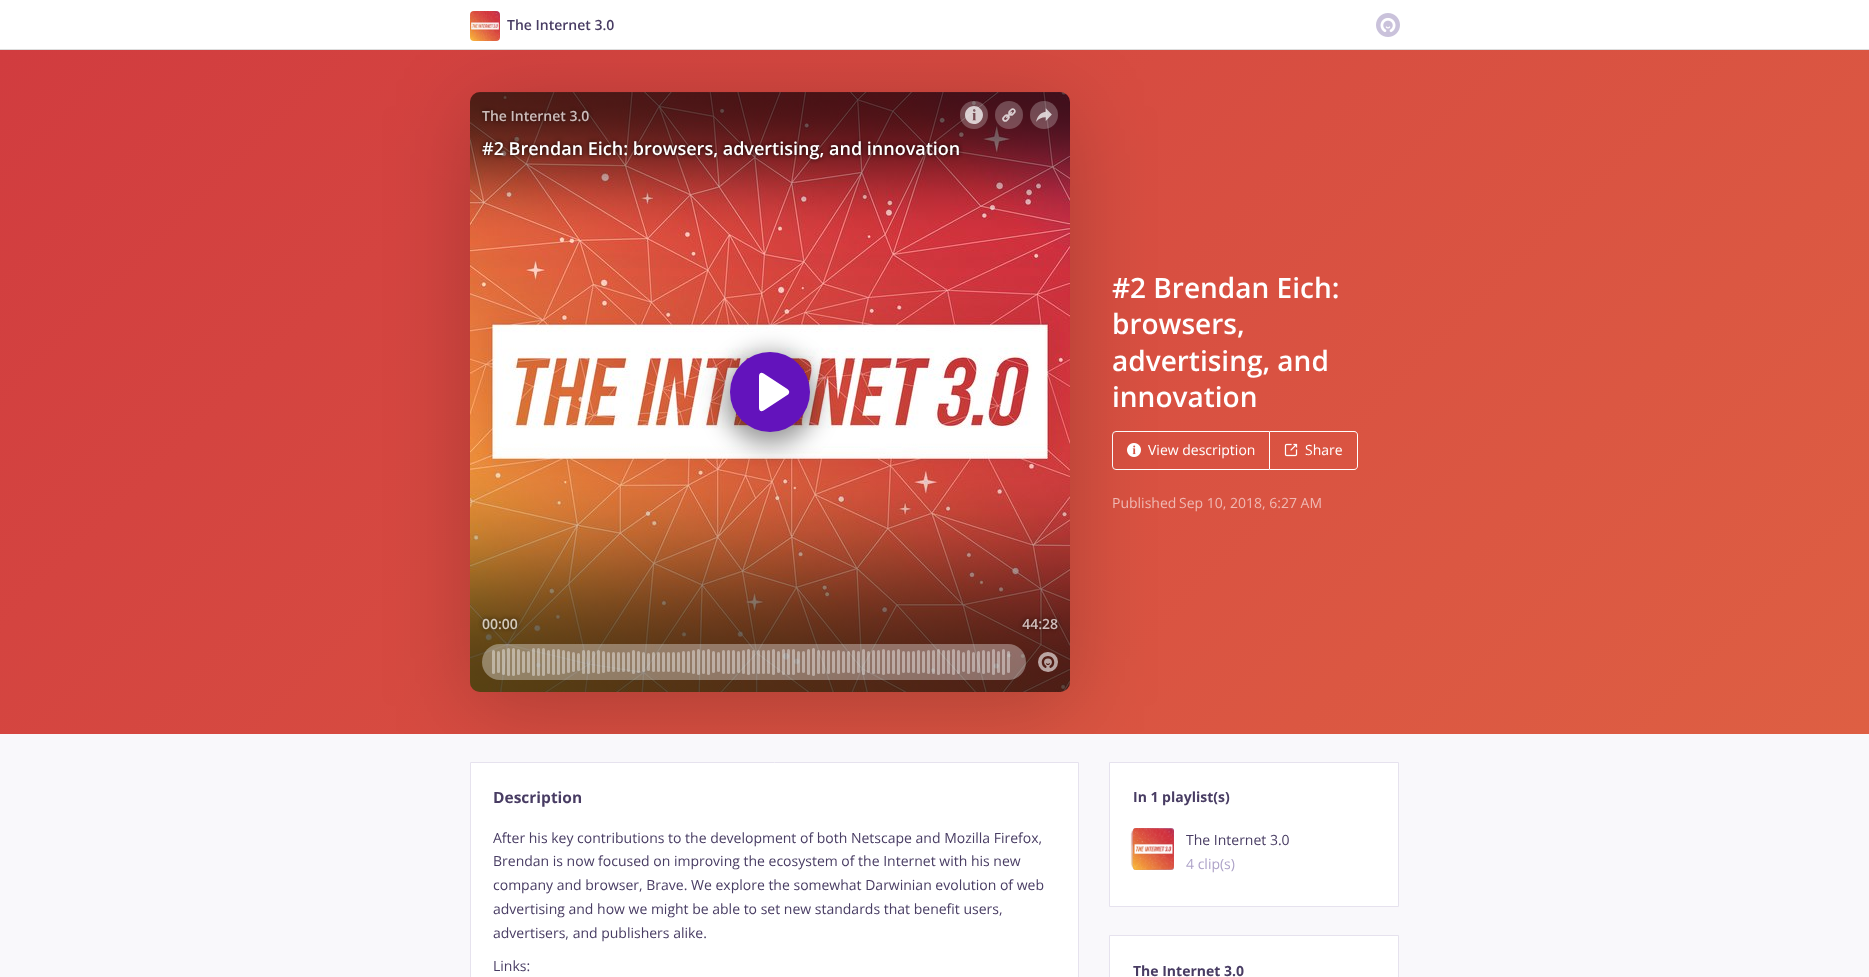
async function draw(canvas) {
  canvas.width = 1869
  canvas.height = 977
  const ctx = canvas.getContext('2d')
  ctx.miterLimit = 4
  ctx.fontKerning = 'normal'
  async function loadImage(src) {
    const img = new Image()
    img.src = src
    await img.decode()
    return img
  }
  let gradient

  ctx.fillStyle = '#f9f8fb'
  ctx.fillRect(0, 0, 1869, 977)
  ctx.fillStyle = '#fff'
  ctx.fillRect(0, 0, 1869, 49)
  ctx.fillStyle = '#ddd'
  ctx.fillRect(0, 49, 1869, 1)
  ctx.drawImage(await loadImage('image0.png'), 470, 11, 30, 30)
  ctx.font = '600 14px Open Sans'
  ctx.fillStyle = '#483c63'
  ctx.fillText('The Internet 3.0', 507, 30)
  ctx.drawImage(await loadImage('image1.png'), 1376, 13, 24, 24)
  gradient = ctx.createLinearGradient(296, -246, 1573, 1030)
  gradient.addColorStop(0, '#d13c3f')
  gradient.addColorStop(1, '#de5f43')
  ctx.fillStyle = gradient
  ctx.fillRect(0, 50, 1869, 684)
  ctx.beginPath()
  ctx.roundRect(1112.5, 431.5, 157, 38, [3.5, 0, 0, 3.5])
  ctx.strokeStyle = '#fff'
  ctx.stroke()
  ctx.fillStyle = '#fff'
  ctx.beginPath()
  ctx.rect(470.5, 762.5, 608, 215)
  ctx.fill()
  ctx.strokeStyle = '#e6e2ee'
  ctx.stroke()
  ctx.beginPath()
  ctx.rect(1109.5, 762.5, 289, 144)
  ctx.fill()
  ctx.stroke()
  ctx.save()
  ctx.beginPath()
  ctx.rect(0, 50, 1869, 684)
  ctx.clip()
  ctx.fillStyle = '#00000033'
  ctx.filter = 'blur(42px)'
  ctx.beginPath()
  ctx.roundRect(470, 106, 600, 600, 10)
  ctx.fill()
  ctx.filter = 'none'
  ctx.restore()
  ctx.fillStyle = '#00000033'
  ctx.beginPath()
  ctx.roundRect(470, 92, 600, 600, 10)
  ctx.fill()
  ctx.drawImage(await loadImage('image2.png'), 470, 92, 600, 600)
  ctx.font = '600 28px Open Sans'
  ctx.fillStyle = '#fff'
  ctx.fillText('#2 Brendan Eich:', 1112, 298)
  ctx.fillText('browsers,', 1112, 334)
  ctx.fillText('advertising, and', 1112, 371)
  ctx.fillText('innovation', 1112, 407)
  ctx.drawImage(await loadImage('image3.png'), 1127, 443, 14, 14)
  ctx.font = '14px Open Sans'
  ctx.fillText('View description', 1148, 455)
  ctx.beginPath()
  ctx.moveTo(1270, 431)
  ctx.lineTo(1354, 431)
  ctx.bezierCurveTo(1356, 431, 1358, 433, 1358, 435)
  ctx.lineTo(1358, 466)
  ctx.bezierCurveTo(1358, 468, 1356, 470, 1354, 470)
  ctx.lineTo(1270, 470)
  ctx.closePath()
  ctx.moveTo(1270, 432)
  ctx.lineTo(1354, 432)
  ctx.bezierCurveTo(1356, 432, 1357, 433, 1357, 435)
  ctx.lineTo(1357, 466)
  ctx.bezierCurveTo(1357, 468, 1356, 469, 1354, 469)
  ctx.lineTo(1270, 469)
  ctx.closePath()
  ctx.fill('evenodd')
  ctx.drawImage(await loadImage('image4.png'), 1284, 443, 14, 14)
  ctx.fillText('Share', 1305, 455)
  ctx.fillStyle = '#efb9b3'
  ctx.fillText('Published', 1112, 508)
  ctx.fillText('Sep 10, 2018, 6:27 AM', 1179, 508)
  ctx.font = 'bold 15.5px Open Sans'
  ctx.fillStyle = '#483c63'
  ctx.fillText('Description', 493, 803)
  ctx.font = '14px Open Sans'
  ctx.fillText('After his key contributions to the development of both Netscape and Mozilla Firefox,', 493, 843)
  ctx.fillText('Brendan is now focused on improving the ecosystem of the Internet with his new', 493, 866)
  ctx.fillText('company and browser, Brave. We explore the somewhat Darwinian evolution of web', 493, 890)
  ctx.fillText('advertising and how we might be able to set new standards that benefit users,', 493, 914)
  ctx.fillText('advertisers, and publishers alike.', 493, 938)
  ctx.fillText('Links:', 493, 971)
  ctx.font = 'bold 14px Open Sans'
  ctx.fillText('In 1 playlist(s)', 1133, 802)
  ctx.fillStyle = '#efecf4'
  ctx.beginPath()
  ctx.roundRect(1131, 832, 33, 34, 2.5)
  ctx.fill()
  ctx.drawImage(await loadImage('image7.png'), 1130, 832, 3, 34)
  ctx.fillStyle = '#afa1ca80'
  ctx.beginPath()
  ctx.roundRect(1132, 830, 37, 38, 2.5)
  ctx.fill()
  ctx.drawImage(await loadImage('image6.png'), 1131, 830, 3, 38)
  ctx.fillStyle = '#afa1ca'
  ctx.beginPath()
  ctx.roundRect(1133, 828, 41, 42, 3)
  ctx.fill()
  ctx.drawImage(await loadImage('image5.png'), 1133, 828, 41, 42)
  ctx.font = '14px Open Sans'
  ctx.fillStyle = '#483c63'
  ctx.fillText('The Internet 3.0', 1186, 845)
  ctx.fillStyle = '#aea3c8'
  ctx.fillText('4 clip(s)', 1186, 869)
  ctx.fillStyle = '#fff'
  ctx.beginPath()
  ctx.rect(1109.5, 935.5, 289, 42)
  ctx.fill()
  ctx.stroke()
  ctx.font = 'bold 14px Open Sans'
  ctx.fillStyle = '#483c63'
  ctx.fillText('The Internet 3.0', 1133, 976)
}

draw(document.querySelector('canvas'))
